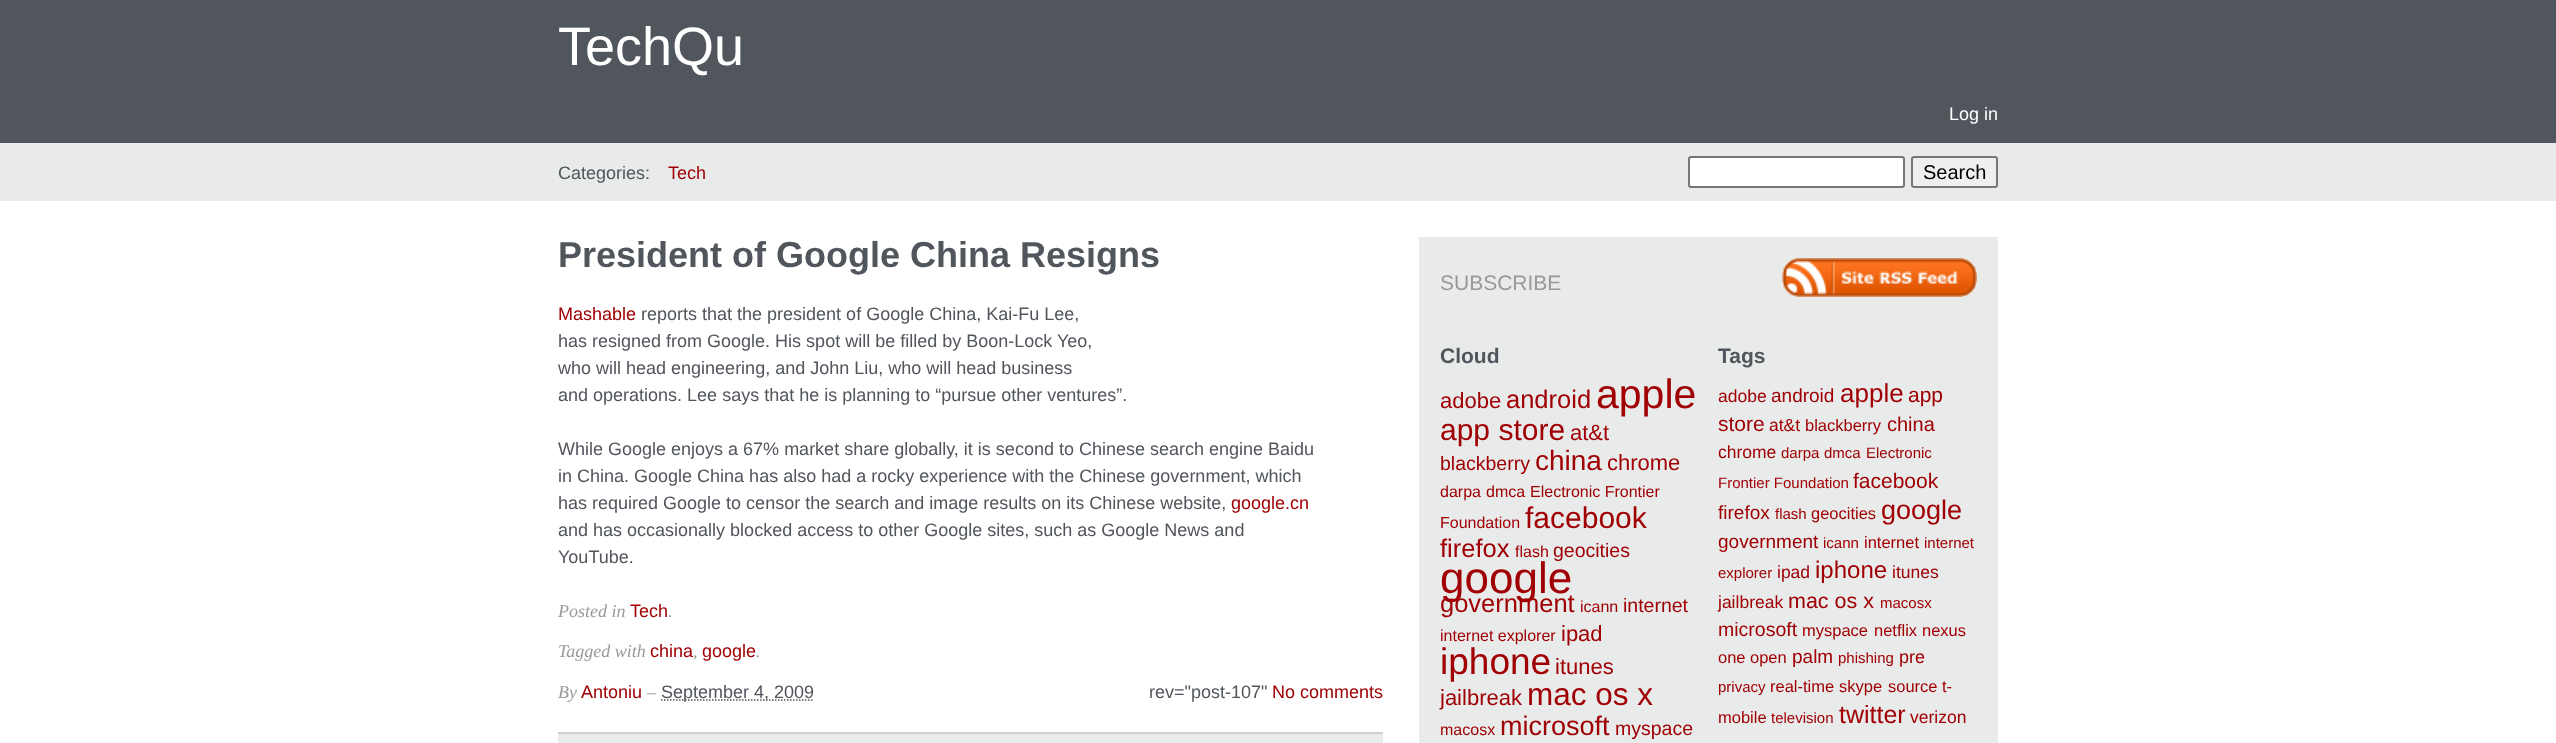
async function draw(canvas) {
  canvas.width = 2556
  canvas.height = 743
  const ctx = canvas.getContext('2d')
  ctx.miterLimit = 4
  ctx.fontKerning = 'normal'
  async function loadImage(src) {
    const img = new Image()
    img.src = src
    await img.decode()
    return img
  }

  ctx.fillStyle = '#fff'
  ctx.fillRect(0, 0, 2556, 743)
  ctx.fillStyle = '#51555c'
  ctx.fillRect(0, 0, 2556, 143)
  ctx.font = '54px Liberation Sans'
  ctx.fillStyle = '#fff'
  ctx.fillText('TechQu', 558, 65)
  ctx.font = '18px Liberation Sans'
  ctx.fillText('Log in', 1949, 120)
  ctx.fillStyle = '#e9eaea'
  ctx.fillRect(0, 143, 2556, 58)
  ctx.fillStyle = '#51555c'
  ctx.fillText('Categories:', 558, 179)
  ctx.fillStyle = '#a00004'
  ctx.fillText('Tech', 668, 179)
  ctx.fillStyle = '#fff'
  ctx.beginPath()
  ctx.roundRect(1689, 157, 215, 30, 2)
  ctx.fill()
  ctx.strokeStyle = '#767676'
  ctx.lineWidth = 2
  ctx.stroke()
  ctx.fillStyle = '#efefef'
  ctx.beginPath()
  ctx.roundRect(1912, 157, 85, 30, 2)
  ctx.fill()
  ctx.stroke()
  ctx.font = '20px Liberation Sans'
  ctx.fillStyle = '#000'
  ctx.fillText('Search', 1923, 179)
  ctx.font = 'bold 36px Liberation Sans'
  ctx.fillStyle = '#51555c'
  ctx.fillText('President of Google China Resigns', 558, 267)
  ctx.font = '18px Liberation Sans'
  ctx.fillStyle = '#a00004'
  ctx.fillText('Mashable', 558, 320)
  ctx.fillStyle = '#51555c'
  ctx.fillText('reports that the president of Google China, Kai-Fu Lee,', 641, 320)
  ctx.fillText('has resigned from Google. His spot will be filled by Boon-Lock Yeo,', 558, 347)
  ctx.fillText('who will head engineering, and John Liu, who will head business', 558, 374)
  ctx.fillText('and operations. Lee says that he is planning to “pursue other ventures”.', 558, 401)
  ctx.fillText('While Google enjoys a 67% market share globally, it is second to Chinese search engine Baidu', 558, 455)
  ctx.fillText('in China. Google China has also had a rocky experience with the Chinese government, which', 558, 482)
  ctx.fillText('has required Google to censor the search and image results on its Chinese website,', 558, 509)
  ctx.fillStyle = '#a00004'
  ctx.fillText('google.cn', 1231, 509)
  ctx.fillStyle = '#51555c'
  ctx.fillText('and has occasionally blocked access to other Google sites, such as Google News and', 558, 536)
  ctx.fillText('YouTube.', 558, 563)
  ctx.font = 'italic 18px Liberation Serif'
  ctx.fillStyle = '#999'
  ctx.fillText('Posted in', 558, 617)
  ctx.font = '18px Liberation Sans'
  ctx.fillStyle = '#a00004'
  ctx.fillText('Tech', 630, 617)
  ctx.font = 'italic 18px Liberation Serif'
  ctx.fillStyle = '#999'
  ctx.fillText('.', 668, 617)
  ctx.fillText('Tagged with', 558, 657)
  ctx.font = '18px Liberation Sans'
  ctx.fillStyle = '#a00004'
  ctx.fillText('china', 650, 657)
  ctx.font = 'italic 18px Liberation Serif'
  ctx.fillStyle = '#999'
  ctx.fillText(',', 693, 657)
  ctx.font = '18px Liberation Sans'
  ctx.fillStyle = '#a00004'
  ctx.fillText('google', 702, 657)
  ctx.font = 'italic 18px Liberation Serif'
  ctx.fillStyle = '#999'
  ctx.fillText('.', 756, 657)
  ctx.fillText('By', 558, 698)
  ctx.font = '18px Liberation Sans'
  ctx.fillStyle = '#a00004'
  ctx.fillText('Antoniu', 581, 698)
  ctx.font = 'italic 18px Liberation Serif'
  ctx.fillStyle = '#999'
  ctx.fillText('–', 647, 698)
  ctx.beginPath()
  ctx.moveTo(661, 700)
  ctx.lineTo(814, 700)
  ctx.strokeStyle = '#51555c'
  ctx.lineWidth = 1.5
  ctx.setLineDash([1.5, 1.5])
  ctx.stroke()
  ctx.font = '18px Liberation Sans'
  ctx.fillStyle = '#51555c'
  ctx.fillText('September 4, 2009', 661, 698)
  ctx.fillText('rev="post-107"', 1149, 698)
  ctx.fillStyle = '#a00004'
  ctx.fillText('No comments', 1272, 698)
  ctx.fillStyle = '#e9eaea'
  ctx.fillRect(558, 734, 825, 9)
  ctx.fillStyle = '#cecfd1'
  ctx.fillRect(558, 732, 825, 2)
  ctx.fillStyle = '#e9eaea'
  ctx.fillRect(1419, 237, 579, 506)
  ctx.font = '21px Liberation Sans'
  ctx.fillStyle = '#999'
  ctx.fillText('SUBSCRIBE', 1440, 290)
  ctx.drawImage(await loadImage('image0.png'), 1782, 258, 195, 39)
  ctx.font = 'bold 21px Liberation Sans'
  ctx.fillStyle = '#51555c'
  ctx.fillText('Cloud', 1440, 363)
  ctx.font = '22px Liberation Sans'
  ctx.fillStyle = '#a00004'
  ctx.fillText('adobe', 1440, 408)
  ctx.font = '25.5px Liberation Sans'
  ctx.fillText('android', 1506, 408)
  ctx.font = '41px Liberation Sans'
  ctx.fillText('apple', 1596, 408)
  ctx.font = '30px Liberation Sans'
  ctx.fillText('app store', 1440, 440)
  ctx.font = '22px Liberation Sans'
  ctx.fillText('at&t', 1570, 440)
  ctx.font = '19.5px Liberation Sans'
  ctx.fillText('blackberry', 1440, 470)
  ctx.font = '28px Liberation Sans'
  ctx.fillText('china', 1535, 470)
  ctx.font = '22px Liberation Sans'
  ctx.fillText('chrome', 1607, 470)
  ctx.font = '16px Liberation Sans'
  ctx.fillText('darpa', 1440, 497)
  ctx.fillText('dmca', 1486, 497)
  ctx.fillText('Electronic Frontier', 1530, 497)
  ctx.fillText('Foundation', 1440, 528)
  ctx.font = '30px Liberation Sans'
  ctx.fillText('facebook', 1525, 528)
  ctx.font = '25.5px Liberation Sans'
  ctx.fillText('firefox', 1440, 557)
  ctx.font = '16px Liberation Sans'
  ctx.fillText('flash', 1515, 557)
  ctx.font = '19.5px Liberation Sans'
  ctx.fillText('geocities', 1553, 557)
  ctx.font = '44px Liberation Sans'
  ctx.fillText('google', 1440, 593)
  ctx.font = '25.5px Liberation Sans'
  ctx.fillText('government', 1440, 612)
  ctx.font = '16px Liberation Sans'
  ctx.fillText('icann', 1580, 612)
  ctx.font = '19.5px Liberation Sans'
  ctx.fillText('internet', 1623, 612)
  ctx.font = '16px Liberation Sans'
  ctx.fillText('internet explorer', 1440, 641)
  ctx.font = '22px Liberation Sans'
  ctx.fillText('ipad', 1561, 641)
  ctx.font = '37px Liberation Sans'
  ctx.fillText('iphone', 1440, 674)
  ctx.font = '22px Liberation Sans'
  ctx.fillText('itunes', 1555, 674)
  ctx.fillText('jailbreak', 1440, 705)
  ctx.font = '31.5px Liberation Sans'
  ctx.fillText('mac os x', 1527, 705)
  ctx.font = '16px Liberation Sans'
  ctx.fillText('macosx', 1440, 735)
  ctx.font = '27px Liberation Sans'
  ctx.fillText('microsoft', 1500, 735)
  ctx.font = '19.5px Liberation Sans'
  ctx.fillText('myspace', 1615, 735)
  ctx.save()
  ctx.beginPath()
  ctx.rect(1718, 342, 259, 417)
  ctx.clip()
  ctx.font = 'bold 21px Liberation Sans'
  ctx.fillStyle = '#51555c'
  ctx.fillText('Tags', 1718, 363)
  ctx.restore()
  ctx.font = '17.5px Liberation Sans'
  ctx.fillText('adobe', 1718, 402)
  ctx.font = '19px Liberation Sans'
  ctx.fillText('android', 1771, 402)
  ctx.font = '26px Liberation Sans'
  ctx.fillText('apple', 1840, 402)
  ctx.font = '21px Liberation Sans'
  ctx.fillText('app', 1908, 402)
  ctx.fillText('store', 1718, 431)
  ctx.font = '17.5px Liberation Sans'
  ctx.fillText('at&t', 1769, 431)
  ctx.font = '16.5px Liberation Sans'
  ctx.fillText('blackberry', 1805, 431)
  ctx.font = '20px Liberation Sans'
  ctx.fillText('china', 1887, 431)
  ctx.font = '17.5px Liberation Sans'
  ctx.fillText('chrome', 1718, 458)
  ctx.font = '15px Liberation Sans'
  ctx.fillText('darpa', 1781, 458)
  ctx.fillText('dmca', 1824, 458)
  ctx.fillText('Electronic', 1866, 458)
  ctx.fillText('Frontier Foundation', 1718, 488)
  ctx.font = '21px Liberation Sans'
  ctx.fillText('facebook', 1853, 488)
  ctx.font = '19px Liberation Sans'
  ctx.fillText('firefox', 1718, 519)
  ctx.font = '15px Liberation Sans'
  ctx.fillText('flash', 1775, 519)
  ctx.font = '16.5px Liberation Sans'
  ctx.fillText('geocities', 1811, 519)
  ctx.font = '27px Liberation Sans'
  ctx.fillText('google', 1881, 519)
  ctx.font = '19px Liberation Sans'
  ctx.fillText('government', 1718, 548)
  ctx.font = '15px Liberation Sans'
  ctx.fillText('icann', 1823, 548)
  ctx.font = '16.5px Liberation Sans'
  ctx.fillText('internet', 1864, 548)
  ctx.font = '15px Liberation Sans'
  ctx.fillText('internet', 1924, 548)
  ctx.fillText('explorer', 1718, 578)
  ctx.font = '17.5px Liberation Sans'
  ctx.fillText('ipad', 1777, 578)
  ctx.font = '24px Liberation Sans'
  ctx.fillText('iphone', 1815, 578)
  ctx.font = '17.5px Liberation Sans'
  ctx.fillText('itunes', 1892, 578)
  ctx.fillText('jailbreak', 1718, 608)
  ctx.font = '21.5px Liberation Sans'
  ctx.fillText('mac os x', 1788, 608)
  ctx.font = '15px Liberation Sans'
  ctx.fillText('macosx', 1880, 608)
  ctx.font = '19.5px Liberation Sans'
  ctx.fillText('microsoft', 1718, 636)
  ctx.font = '16.5px Liberation Sans'
  ctx.fillText('myspace', 1802, 636)
  ctx.fillText('netflix', 1874, 636)
  ctx.fillText('nexus', 1922, 636)
  ctx.fillText('one', 1718, 663)
  ctx.fillText('open', 1750, 663)
  ctx.font = '19px Liberation Sans'
  ctx.fillText('palm', 1792, 663)
  ctx.font = '15px Liberation Sans'
  ctx.fillText('phishing', 1838, 663)
  ctx.font = '18px Liberation Sans'
  ctx.fillText('pre', 1899, 663)
  ctx.font = '15px Liberation Sans'
  ctx.fillText('privacy', 1718, 692)
  ctx.font = '16.5px Liberation Sans'
  ctx.fillText('real-time', 1770, 692)
  ctx.fillText('skype', 1839, 692)
  ctx.fillText('source', 1888, 692)
  ctx.fillText('t-', 1942, 692)
  ctx.fillText('mobile', 1718, 723)
  ctx.font = '15px Liberation Sans'
  ctx.fillText('television', 1771, 723)
  ctx.font = '25px Liberation Sans'
  ctx.fillText('twitter', 1839, 723)
  ctx.font = '17.5px Liberation Sans'
  ctx.fillText('verizon', 1910, 723)
}

draw(document.querySelector('canvas'))
